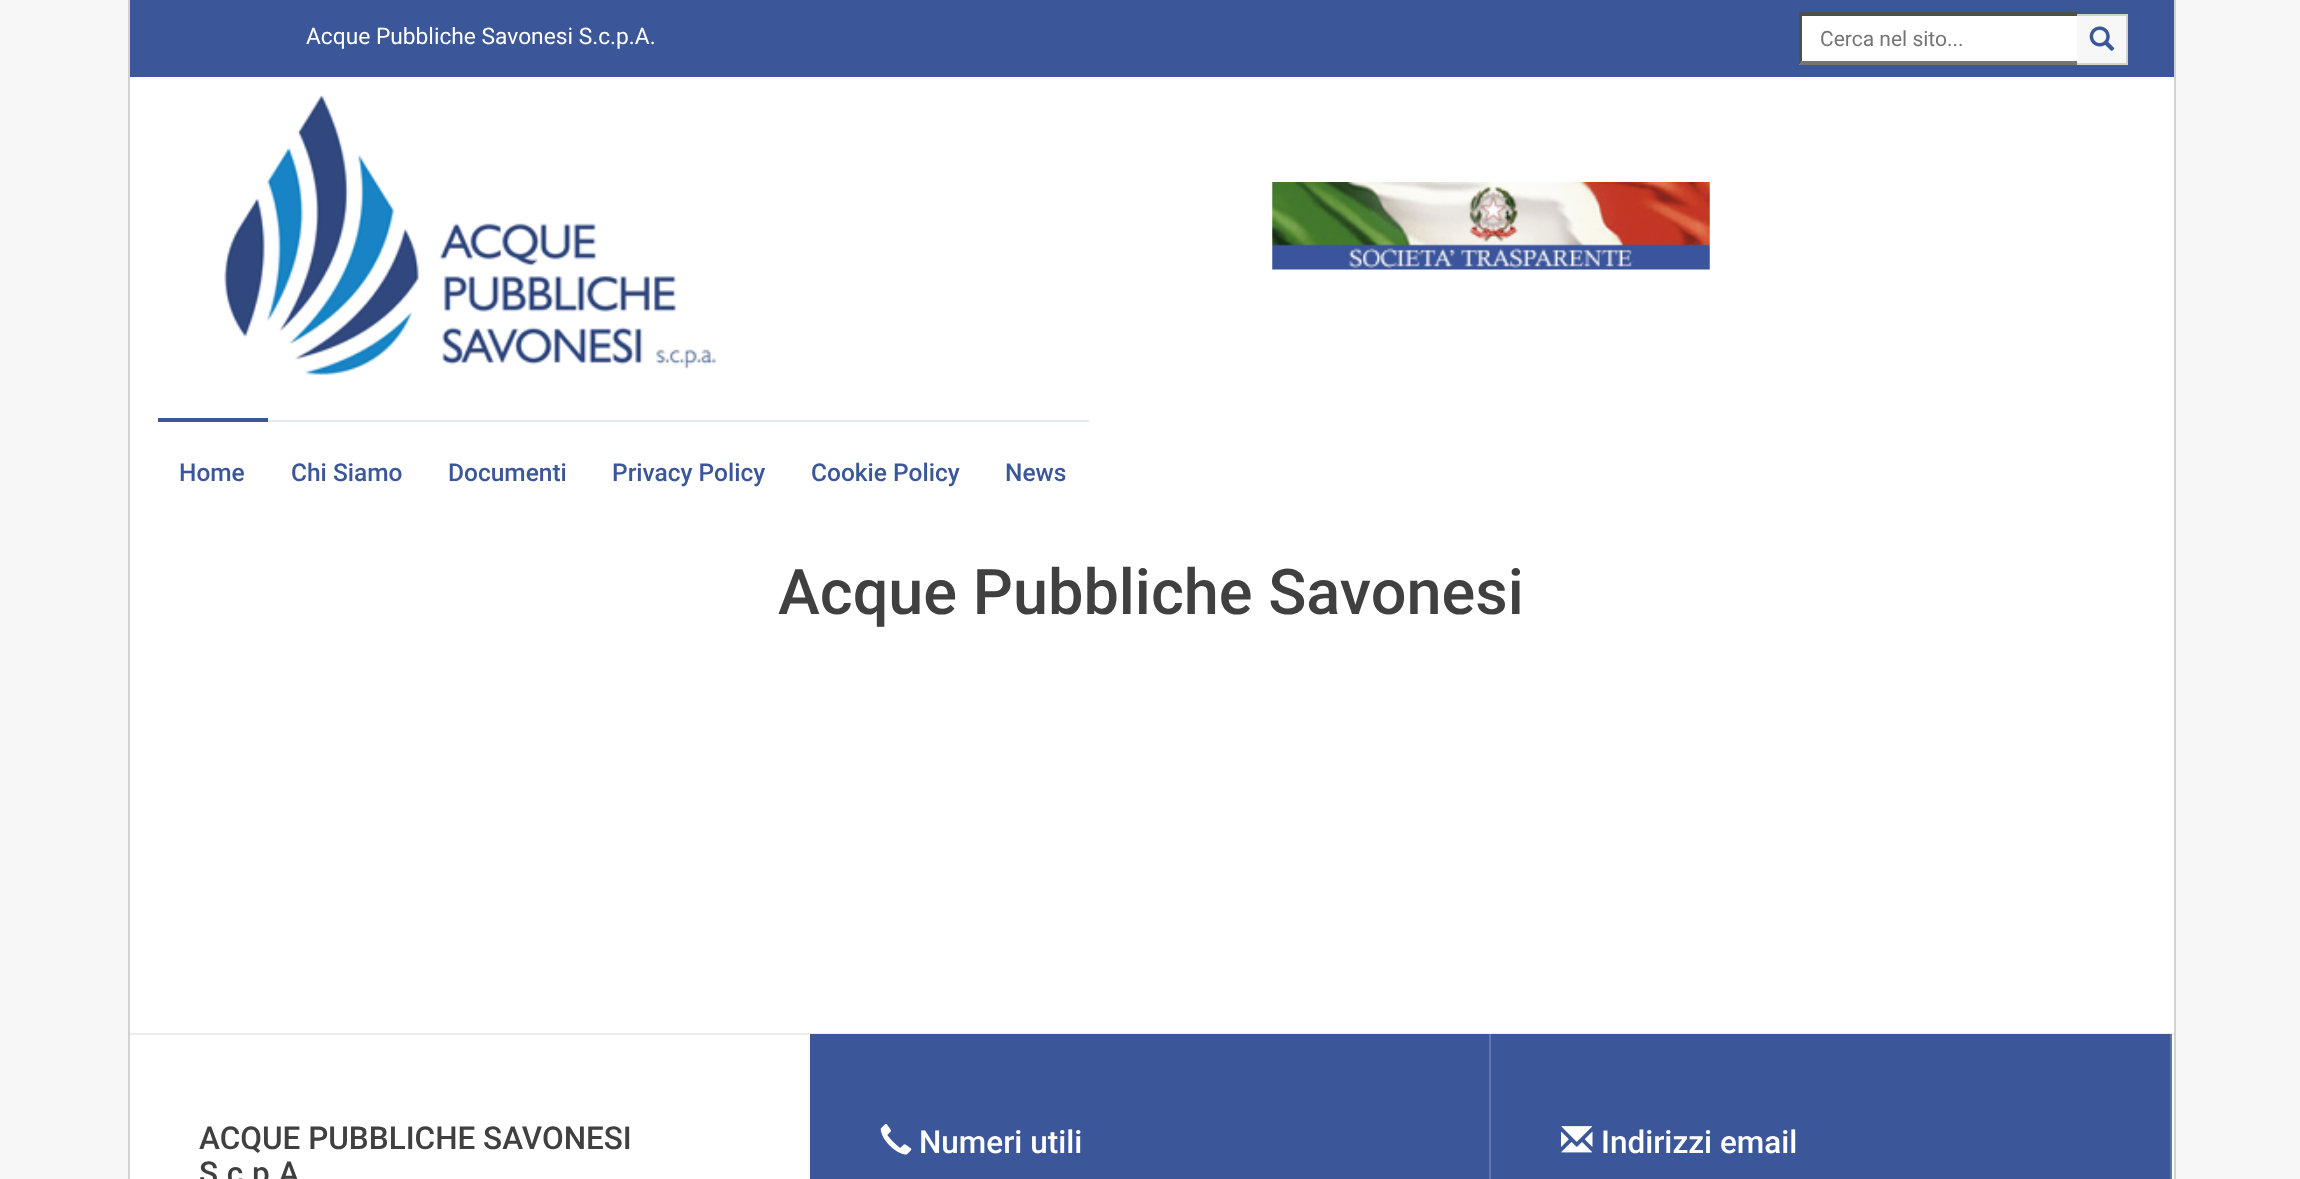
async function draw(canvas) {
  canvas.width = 2300
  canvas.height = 1179
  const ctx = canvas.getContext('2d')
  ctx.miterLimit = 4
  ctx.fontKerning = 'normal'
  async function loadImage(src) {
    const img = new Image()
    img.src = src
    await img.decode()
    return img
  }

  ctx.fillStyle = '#f7f7f7'
  ctx.fillRect(0, 0, 2300, 1179)
  ctx.fillStyle = '#fff'
  ctx.fillRect(130, 77, 2044, 1102)
  ctx.fillStyle = '#d2d2d2'
  ctx.fillRect(2174, 0, 2, 1179)
  ctx.fillRect(128, 0, 2, 1179)
  ctx.fillStyle = '#3b5699'
  ctx.fillRect(130, 0, 2044, 77)
  ctx.font = '22.75px Roboto'
  ctx.fillStyle = '#fff'
  ctx.fillText('Acque Pubbliche Savonesi S.c.p.A.', 306, 44)
  ctx.fillRect(1799, 16, 278, 49)
  ctx.fillStyle = '#4f4f4f'
  ctx.fillRect(1799, 12, 278, 4)
  ctx.fillStyle = '#767676'
  ctx.beginPath()
  ctx.moveTo(2077, 65)
  ctx.lineTo(1799, 65)
  ctx.lineTo(1802, 61)
  ctx.lineTo(2077, 61)
  ctx.closePath()
  ctx.fill()
  ctx.fillStyle = '#4f4f4f'
  ctx.beginPath()
  ctx.moveTo(1799, 65)
  ctx.lineTo(1799, 12)
  ctx.lineTo(1802, 16)
  ctx.lineTo(1802, 61)
  ctx.closePath()
  ctx.fill()
  ctx.font = '21px Roboto'
  ctx.fillStyle = '#757575'
  ctx.fillText('Cerca nel sito...', 1820, 46)
  ctx.fillStyle = '#f7f7f7'
  ctx.fillRect(2077, 16, 49, 47)
  ctx.fillStyle = '#d2d2d2'
  ctx.fillRect(2077, 14, 51, 2)
  ctx.fillRect(2126, 14, 2, 51)
  ctx.fillRect(2077, 63, 51, 2)
  ctx.drawImage(await loadImage('image0.png'), 2089, 26, 26, 25)
  ctx.drawImage(await loadImage('image1.png'), 224, 94, 492, 281)
  ctx.drawImage(await loadImage('image2.png'), 1272, 182, 438, 88)
  ctx.fillStyle = '#e3e9f1'
  ctx.fillRect(268, 420, 821, 2)
  ctx.fillStyle = '#3b5699'
  ctx.fillRect(158, 418, 110, 4)
  ctx.font = '500 24.5px Roboto'
  ctx.fillText('Home', 179, 481)
  ctx.fillText('Chi Siamo', 291, 481)
  ctx.fillText('Documenti', 448, 481)
  ctx.fillText('Privacy Policy', 612, 481)
  ctx.fillText('Cookie Policy', 811, 481)
  ctx.fillText('News', 1005, 481)
  ctx.font = '500 63px Roboto'
  ctx.fillStyle = '#404040'
  ctx.fillText('Acque Pubbliche Savonesi', 778, 614)
  ctx.fillStyle = '#ececec'
  ctx.fillRect(130, 1033, 2044, 2)
  ctx.font = '500 31.5px Roboto'
  ctx.fillStyle = '#404040'
  ctx.fillText('ACQUE PUBBLICHE SAVONESI', 199, 1149)
  ctx.fillText('S.c.p.A', 199, 1184)
  ctx.fillStyle = '#3b5699'
  ctx.fillRect(810, 1034, 679, 145)
  ctx.fillStyle = '#6278ad'
  ctx.fillRect(1489, 1034, 2, 145)
  ctx.drawImage(await loadImage('image3.png'), 880, 1124, 32, 31)
  ctx.fillStyle = '#fff'
  ctx.fillText('Numeri utili', 919, 1153)
  ctx.fillStyle = '#3b5699'
  ctx.fillRect(1491, 1034, 679, 145)
  ctx.fillStyle = '#6278ad'
  ctx.fillRect(2170, 1034, 2, 145)
  ctx.drawImage(await loadImage('image4.png'), 1561, 1126, 32, 27)
  ctx.fillStyle = '#fff'
  ctx.fillText('Indirizzi email', 1601, 1153)
}

draw(document.querySelector('canvas'))
